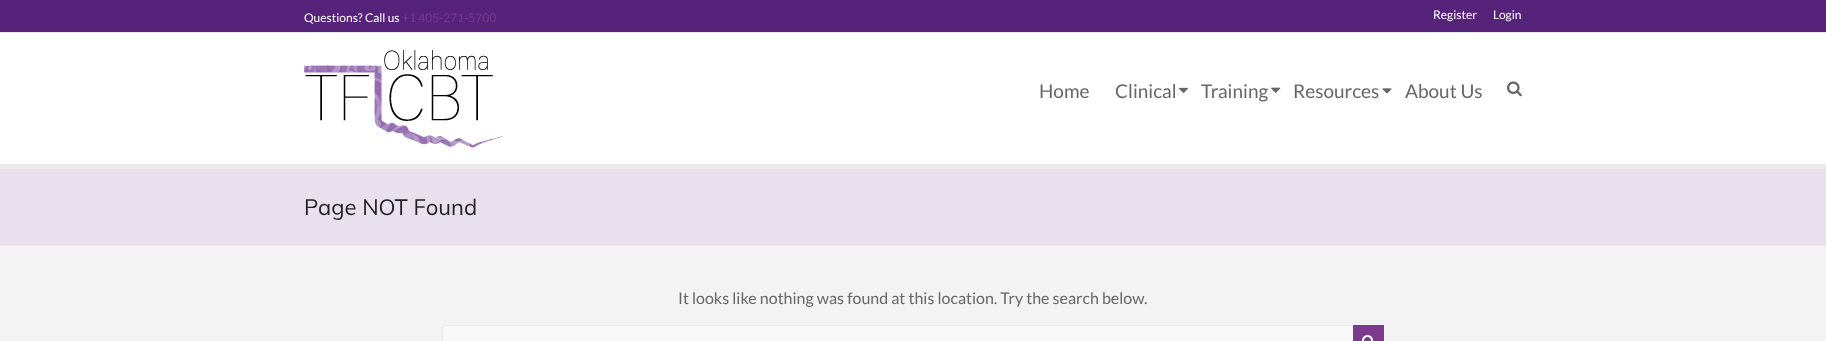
async function draw(canvas) {
  canvas.width = 1826
  canvas.height = 341
  const ctx = canvas.getContext('2d')
  ctx.miterLimit = 4
  ctx.fontKerning = 'normal'
  async function loadImage(src) {
    const img = new Image()
    img.src = src
    await img.decode()
    return img
  }

  ctx.fillStyle = '#fff'
  ctx.fillRect(0, 0, 1826, 341)
  ctx.fillStyle = '#55247a'
  ctx.fillRect(0, 0, 1826, 32)
  ctx.fillStyle = '#eaeaea'
  ctx.fillRect(0, 32, 1826, 1)
  ctx.font = '12px Lato'
  ctx.fillStyle = '#fff'
  ctx.fillText('Questions? Call us', 304, 22)
  ctx.fillStyle = '#7b3a8e'
  ctx.fillText('+1 405-271-5700', 402, 22)
  ctx.fillStyle = '#fff'
  ctx.fillText('Register', 1433, 19)
  ctx.fillText('Login', 1493, 19)
  ctx.fillStyle = '#eaeaea'
  ctx.fillRect(0, 164, 1826, 5)
  ctx.drawImage(await loadImage('image0.png'), 304, 50, 199, 98)
  ctx.font = '19px Lato'
  ctx.fillStyle = '#666'
  ctx.fillText('Home', 1039, 98)
  ctx.fillText('Clinical', 1115, 98)
  ctx.drawImage(await loadImage('image1.png'), 1179, 87, 9, 6)
  ctx.fillText('Training', 1201, 98)
  ctx.drawImage(await loadImage('image2.png'), 1271, 87, 10, 6)
  ctx.fillText('Resources', 1293, 98)
  ctx.drawImage(await loadImage('image3.png'), 1382, 88, 10, 6)
  ctx.fillText('About Us', 1405, 98)
  ctx.drawImage(await loadImage('image4.png'), 1507, 81, 15, 16)
  ctx.fillStyle = '#e8e0ed'
  ctx.fillRect(0, 169, 1826, 76)
  ctx.fillStyle = '#eaeaea'
  ctx.fillRect(0, 245, 1826, 1)
  ctx.font = '22px Muli'
  ctx.fillStyle = '#222'
  ctx.fillText('Page NOT Found', 304, 215)
  ctx.fillStyle = '#f3f3f3'
  ctx.fillRect(0, 246, 1826, 95)
  ctx.font = '16px Lato'
  ctx.fillStyle = '#666'
  ctx.fillText('It looks like nothing was found at this location. Try the search below.', 678, 304)
  ctx.fillStyle = '#f8f8f8'
  ctx.beginPath()
  ctx.roundRect(442.5, 325.5, 912, 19, 2.5)
  ctx.fill()
  ctx.strokeStyle = '#eaeaea'
  ctx.stroke()
  ctx.fillStyle = '#7b3a8e'
  ctx.fillRect(1353, 325, 31, 16)
  ctx.drawImage(await loadImage('image5.png'), 1362, 335, 11, 6)
}

draw(document.querySelector('canvas'))
